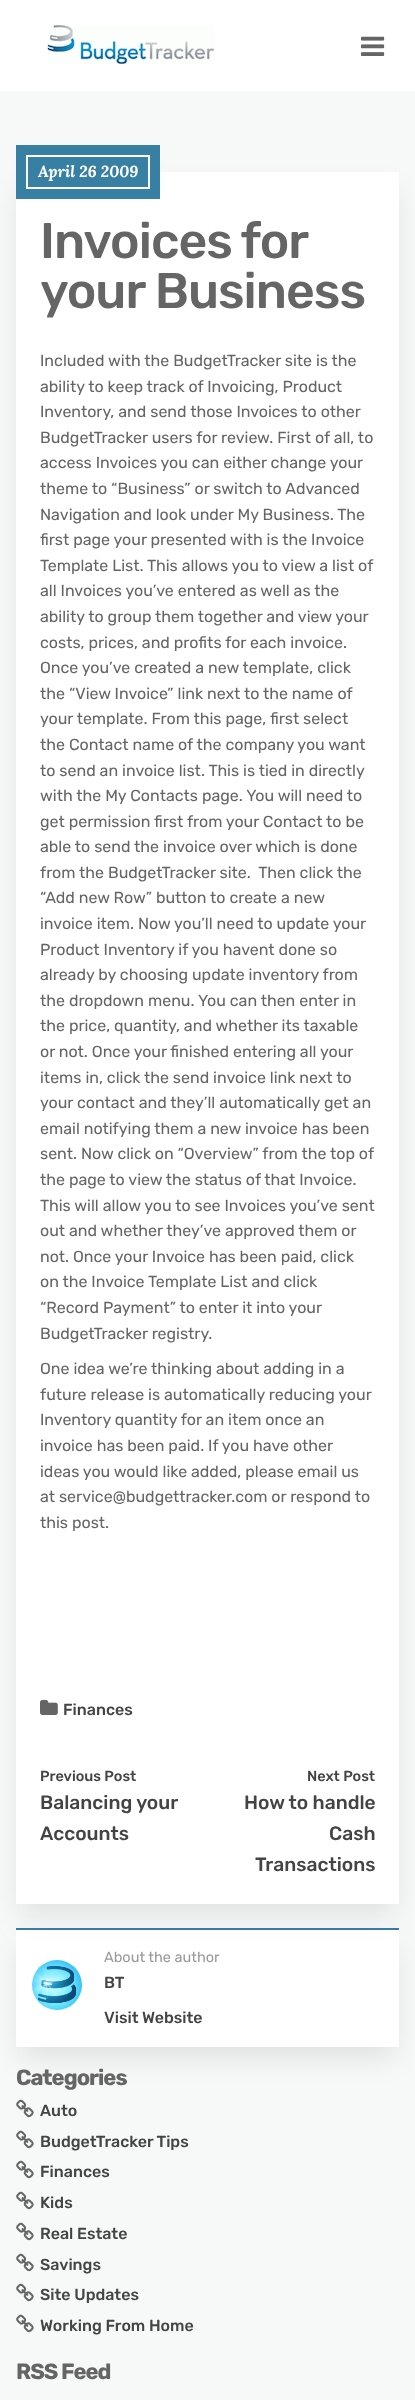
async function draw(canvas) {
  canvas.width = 415
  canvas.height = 2400
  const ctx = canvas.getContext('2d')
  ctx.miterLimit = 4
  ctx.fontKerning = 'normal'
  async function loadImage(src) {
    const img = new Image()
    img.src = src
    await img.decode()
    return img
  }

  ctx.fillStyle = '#f7f8f8'
  ctx.fillRect(0, 0, 415, 2400)
  ctx.fillStyle = '#fff'
  ctx.fillRect(0, 0, 415, 91)
  ctx.drawImage(await loadImage('image0.png'), 47, 25, 168, 39)
  ctx.drawImage(await loadImage('image1.png'), 361, 36, 24, 20)
  ctx.fillStyle = '#0e11141a'
  ctx.filter = 'blur(14px)'
  ctx.beginPath()
  ctx.rect(20, 1946, 375, 111)
  ctx.fill()
  ctx.filter = 'none'
  ctx.fillStyle = '#fff'
  ctx.fillRect(16, 1930, 383, 117)
  ctx.fillStyle = '#377fa3'
  ctx.fillRect(16, 1928, 383, 2)
  ctx.fillStyle = '#0e11141a'
  ctx.filter = 'blur(14px)'
  ctx.beginPath()
  ctx.rect(20, 190, 375, 1724)
  ctx.fill()
  ctx.filter = 'none'
  ctx.fillStyle = '#fff'
  ctx.fillRect(16, 172, 383, 1732)
  ctx.fillStyle = '#377fa3'
  ctx.fillRect(16, 145, 144, 54)
  ctx.strokeStyle = '#fff'
  ctx.lineWidth = 2
  ctx.strokeRect(27, 156, 122, 32)
  ctx.font = 'italic bold 16px Lora'
  ctx.fillStyle = '#fff'
  ctx.fillText('April 26 2009', 38, 177)
  ctx.letterSpacing = '-1px'
  ctx.wordSpacing = '-1px'
  ctx.font = '500 50px Rubik'
  ctx.fillStyle = '#656565'
  ctx.fillText('Invoices for', 40, 258)
  ctx.wordSpacing = '0px'
  ctx.fillText('your Business', 40, 308)
  ctx.letterSpacing = '0px'
  ctx.font = '16px Rubik'
  ctx.fillText('Included with the BudgetTracker site is the', 40, 366)
  ctx.fillText('ability to keep track of Invoicing, Product', 40, 392)
  ctx.fillText('Inventory, and send those Invoices to other', 40, 417)
  ctx.fillText('BudgetTracker users for review. First of all, to', 40, 443)
  ctx.fillText('access Invoices you can either change your', 40, 468)
  ctx.fillText('theme to “Business” or switch to Advanced', 40, 494)
  ctx.fillText('Navigation and look under My Business. The', 40, 520)
  ctx.fillText('first page your presented with is the Invoice', 40, 545)
  ctx.fillText('Template List. This allows you to view a list of', 40, 571)
  ctx.fillText('all Invoices you’ve entered as well as the', 40, 596)
  ctx.fillText('ability to group them together and view your', 40, 622)
  ctx.fillText('costs, prices, and profits for each invoice.', 40, 648)
  ctx.fillText('Once you’ve created a new template, click', 40, 673)
  ctx.fillText('the “View Invoice” link next to the name of', 40, 699)
  ctx.fillText('your template. From this page, first select', 40, 724)
  ctx.fillText('the Contact name of the company you want', 40, 750)
  ctx.fillText('to send an invoice list. This is tied in directly', 40, 776)
  ctx.fillText('with the My Contacts page. You will need to', 40, 801)
  ctx.fillText('get permission first from your Contact to be', 40, 827)
  ctx.fillText('able to send the invoice over which is done', 40, 852)
  ctx.fillText('from the BudgetTracker site.  Then click the', 40, 878)
  ctx.fillText('“Add new Row” button to create a new', 40, 903)
  ctx.fillText('invoice item. Now you’ll need to update your', 40, 929)
  ctx.fillText('Product Inventory if you havent done so', 40, 955)
  ctx.fillText('already by choosing update inventory from', 40, 980)
  ctx.fillText('the dropdown menu. You can then enter in', 40, 1006)
  ctx.fillText('the price, quantity, and whether its taxable', 40, 1031)
  ctx.fillText('or not. Once your finished entering all your', 40, 1057)
  ctx.fillText('items in, click the send invoice link next to', 40, 1083)
  ctx.fillText('your contact and they’ll automatically get an', 40, 1108)
  ctx.fillText('email notifying them a new invoice has been', 40, 1134)
  ctx.fillText('sent. Now click on “Overview” from the top of', 40, 1159)
  ctx.fillText('the page to view the status of that Invoice.', 40, 1185)
  ctx.fillText('This will allow you to see Invoices you’ve sent', 40, 1211)
  ctx.fillText('out and whether they’ve approved them or', 40, 1236)
  ctx.fillText('not. Once your Invoice has been paid, click', 40, 1262)
  ctx.fillText('on the Invoice Template List and click', 40, 1287)
  ctx.fillText('“Record Payment” to enter it into your', 40, 1313)
  ctx.fillText('BudgetTracker registry.', 40, 1339)
  ctx.fillText('One idea we’re thinking about adding in a', 40, 1374)
  ctx.fillText('future release is automatically reducing your', 40, 1400)
  ctx.fillText('Inventory quantity for an item once an', 40, 1425)
  ctx.fillText('invoice has been paid. If you have other', 40, 1451)
  ctx.fillText('ideas you would like added, please email us', 40, 1477)
  ctx.fillText('at service@budgettracker.com or respond to', 40, 1502)
  ctx.fillText('this post.', 40, 1528)
  ctx.drawImage(await loadImage('image2.png'), 40, 1699, 18, 16)
  ctx.font = '500 16px Rubik'
  ctx.fillStyle = '#444'
  ctx.fillText('Finances', 63, 1715)
  ctx.font = '500 14.5px Rubik'
  ctx.fillText('Previous Post', 40, 1781)
  ctx.font = '500 19.25px Rubik'
  ctx.fillText('Balancing your', 40, 1809)
  ctx.fillText('Accounts', 40, 1840)
  ctx.font = '500 14.5px Rubik'
  ctx.fillText('Next Post', 307, 1781)
  ctx.font = '500 19.25px Rubik'
  ctx.fillText('How to handle', 244, 1809)
  ctx.fillText('Cash', 329, 1840)
  ctx.fillText('Transactions', 255, 1871)
  ctx.drawImage(await loadImage('image3.png'), 32, 1960, 50, 50)
  ctx.font = '14.5px Rubik'
  ctx.fillStyle = '#999'
  ctx.fillText('About the author', 104, 1962)
  ctx.font = '500 16px Rubik'
  ctx.fillStyle = '#444'
  ctx.fillText('BT', 104, 1988)
  ctx.fillText('Visit Website', 104, 2023)
  ctx.letterSpacing = '-1px'
  ctx.font = 'bold 22px Rubik'
  ctx.fillStyle = '#656565'
  ctx.fillText('Categories', 16, 2085)
  ctx.drawImage(await loadImage('image4.png'), 16, 2099, 18, 19)
  ctx.letterSpacing = '0px'
  ctx.font = '500 16px Rubik'
  ctx.fillStyle = '#444'
  ctx.fillText('Auto', 40, 2116)
  ctx.drawImage(await loadImage('image5.png'), 16, 2130, 18, 19)
  ctx.fillText('BudgetTracker Tips', 40, 2147)
  ctx.drawImage(await loadImage('image5.png'), 16, 2160, 18, 19)
  ctx.fillText('Finances', 40, 2177)
  ctx.drawImage(await loadImage('image5.png'), 16, 2191, 18, 19)
  ctx.fillText('Kids', 40, 2208)
  ctx.drawImage(await loadImage('image5.png'), 16, 2222, 18, 19)
  ctx.fillText('Real Estate', 40, 2239)
  ctx.drawImage(await loadImage('image5.png'), 16, 2253, 18, 19)
  ctx.fillText('Savings', 40, 2270)
  ctx.drawImage(await loadImage('image5.png'), 16, 2283, 18, 19)
  ctx.fillText('Site Updates', 40, 2300)
  ctx.drawImage(await loadImage('image5.png'), 16, 2314, 18, 19)
  ctx.fillText('Working From Home', 40, 2331)
  ctx.letterSpacing = '-1px'
  ctx.font = 'bold 22px Rubik'
  ctx.fillStyle = '#656565'
  ctx.fillText('RSS Feed', 16, 2379)
}

draw(document.querySelector('canvas'))
